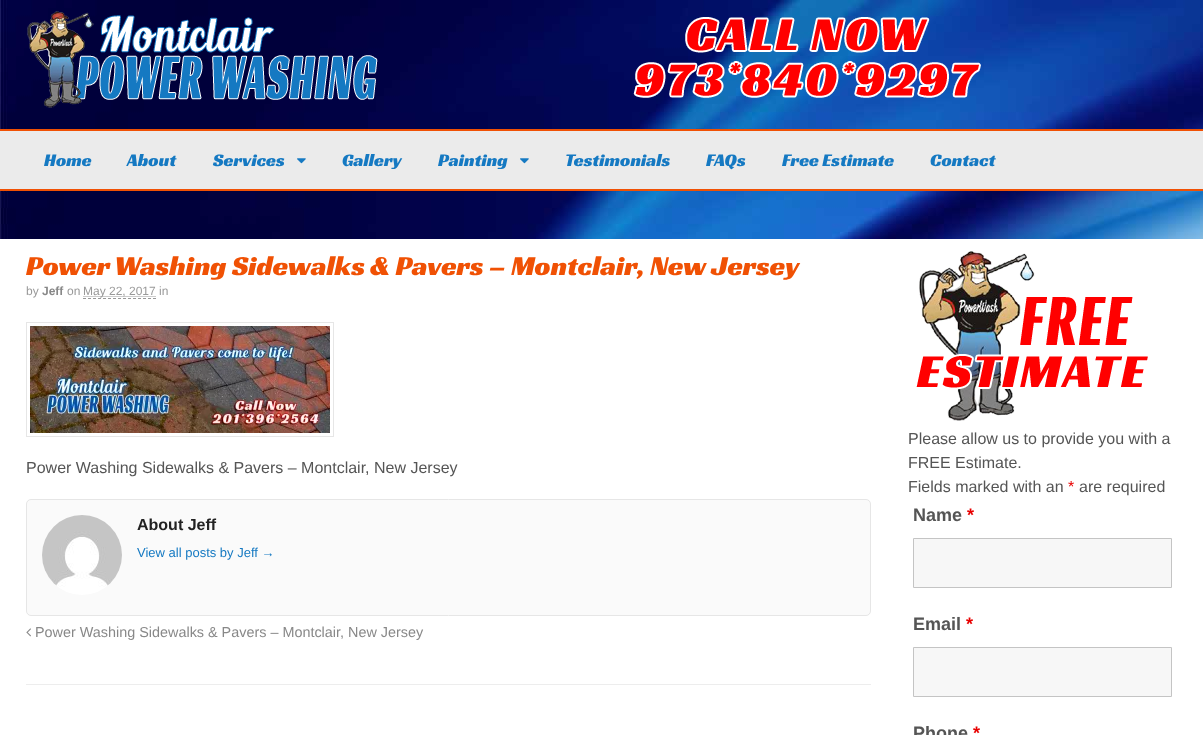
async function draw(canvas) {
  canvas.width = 1203
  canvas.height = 735
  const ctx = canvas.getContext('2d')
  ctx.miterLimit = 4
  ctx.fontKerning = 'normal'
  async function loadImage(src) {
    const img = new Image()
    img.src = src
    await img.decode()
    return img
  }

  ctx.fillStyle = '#fff'
  ctx.fillRect(0, 0, 1203, 735)
  ctx.drawImage(await loadImage('image0.png'), 0, 0, 1203, 239)
  ctx.drawImage(await loadImage('image1.png'), 27, 11, 351, 97)
  ctx.drawImage(await loadImage('image2.png'), 633, 17, 348, 81)
  ctx.fillStyle = '#ebebeb'
  ctx.fillRect(0, 131, 1203, 58)
  ctx.fillStyle = '#f05104'
  ctx.fillRect(0, 129, 1203, 2)
  ctx.fillRect(0, 189, 1203, 2)
  ctx.font = '18px Racing Sans One'
  ctx.fillStyle = '#1579c2'
  ctx.fillText('Home', 44, 166)
  ctx.fillText('About', 127, 166)
  ctx.fillText('Services', 213, 166)
  ctx.drawImage(await loadImage('image3.png'), 297, 158, 9, 6)
  ctx.fillText('Gallery', 342, 166)
  ctx.fillText('Painting', 438, 166)
  ctx.drawImage(await loadImage('image3.png'), 520, 158, 9, 6)
  ctx.fillText('Testimonials', 565, 166)
  ctx.fillText('FAQs', 706, 166)
  ctx.fillText('Free Estimate', 782, 166)
  ctx.fillText('Contact', 930, 166)
  ctx.font = '28px Racing Sans One'
  ctx.fillStyle = '#f05104'
  ctx.fillText('Power Washing Sidewalks & Pavers – Montclair, New Jersey', 26, 275)
  ctx.font = '12px Liberation Sans'
  ctx.fillStyle = '#999'
  ctx.fillText('by', 26, 295)
  ctx.font = 'bold 12px Liberation Sans'
  ctx.fillStyle = '#888'
  ctx.fillText('Jeff', 42, 295)
  ctx.font = '12px Liberation Sans'
  ctx.fillStyle = '#999'
  ctx.fillText('on', 67, 295)
  ctx.beginPath()
  ctx.moveTo(83.5, 296.5)
  ctx.lineTo(156, 296.5)
  ctx.strokeStyle = '#999'
  ctx.setLineDash([1, 1])
  ctx.stroke()
  ctx.fillText('May 22, 2017 in', 83, 295)
  ctx.beginPath()
  ctx.moveTo(83, 298.5)
  ctx.lineTo(156, 298.5)
  ctx.setLineDash([3, 2])
  ctx.stroke()
  ctx.strokeStyle = '#e6e6e6'
  ctx.setLineDash([])
  ctx.strokeRect(26.5, 322.5, 307, 114)
  ctx.drawImage(await loadImage('image4.png'), 30, 326, 300, 107)
  ctx.font = '16px Liberation Sans'
  ctx.fillStyle = '#555'
  ctx.fillText('Power Washing Sidewalks & Pavers – Montclair, New Jersey', 26, 473)
  ctx.fillStyle = '#fafafa'
  ctx.beginPath()
  ctx.roundRect(26.5, 499.5, 844, 116, 4.5)
  ctx.fill()
  ctx.stroke()
  ctx.drawImage(await loadImage('image5.png'), 42, 515, 80, 80)
  ctx.font = 'bold 16px Liberation Sans'
  ctx.fillStyle = '#222'
  ctx.fillText('About Jeff', 137, 530)
  ctx.font = '13px Liberation Sans'
  ctx.fillStyle = '#1579c2'
  ctx.fillText('View all posts by Jeff →', 137, 557)
  ctx.drawImage(await loadImage('image6.png'), 26, 628, 5, 9)
  ctx.font = '14.4px Liberation Sans'
  ctx.fillStyle = '#888'
  ctx.fillText('Power Washing Sidewalks & Pavers – Montclair, New Jersey', 35, 637)
  ctx.fillStyle = '#ededed'
  ctx.fillRect(26, 684, 845, 1)
  ctx.drawImage(await loadImage('image7.png'), 916, 251, 232, 170)
  ctx.font = '16px Liberation Sans'
  ctx.fillStyle = '#555'
  ctx.fillText('Please allow us to provide you with a', 908, 444)
  ctx.fillText('FREE Estimate.', 908, 468)
  ctx.fillText('Fields marked with an', 908, 492)
  ctx.fillStyle = '#e80000'
  ctx.fillText('*', 1068, 492)
  ctx.fillStyle = '#555'
  ctx.fillText('are required', 1079, 492)
  ctx.font = 'bold 18px Liberation Sans'
  ctx.fillText('Name', 913, 521)
  ctx.fillStyle = '#e80000'
  ctx.fillText('*', 967, 521)
  ctx.fillStyle = '#f7f7f7'
  ctx.beginPath()
  ctx.rect(913.5, 538.5, 258, 49)
  ctx.fill()
  ctx.strokeStyle = '#c4c4c4'
  ctx.stroke()
  ctx.fillStyle = '#555'
  ctx.fillText('Email', 913, 630)
  ctx.fillStyle = '#e80000'
  ctx.fillText('*', 966, 630)
  ctx.fillStyle = '#f7f7f7'
  ctx.beginPath()
  ctx.rect(913.5, 647.5, 258, 49)
  ctx.fill()
  ctx.stroke()
  ctx.fillStyle = '#555'
  ctx.fillText('Phone', 913, 739)
  ctx.fillStyle = '#e80000'
  ctx.fillText('*', 973, 739)
}

draw(document.querySelector('canvas'))
